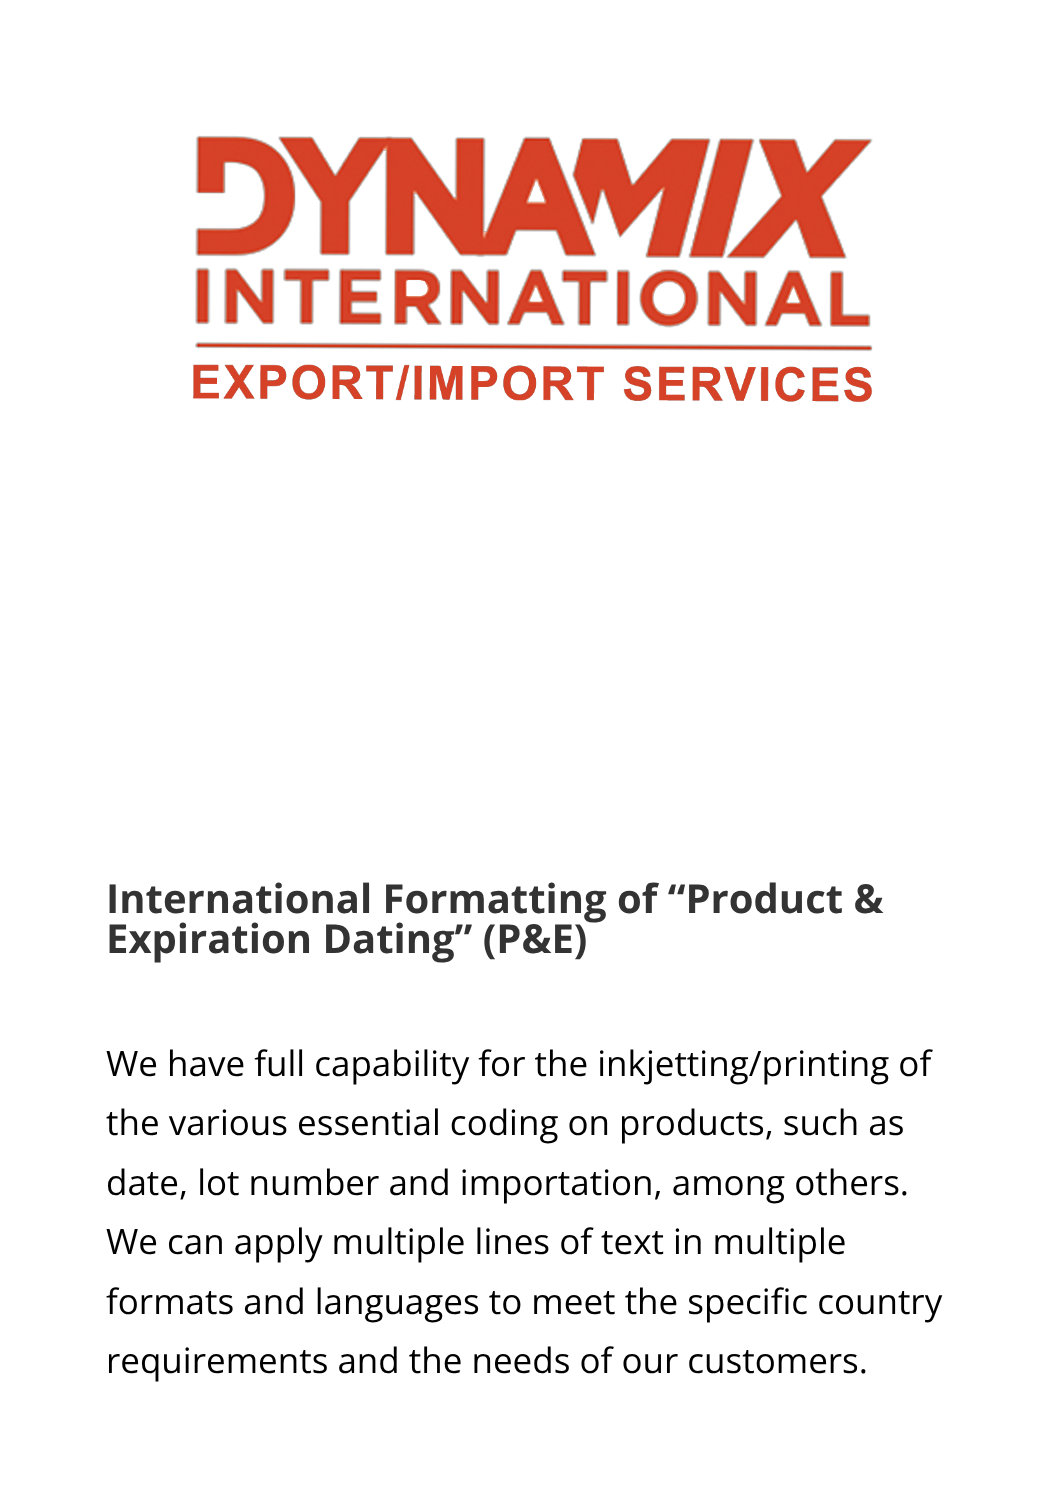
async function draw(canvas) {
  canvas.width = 1055
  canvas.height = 1485
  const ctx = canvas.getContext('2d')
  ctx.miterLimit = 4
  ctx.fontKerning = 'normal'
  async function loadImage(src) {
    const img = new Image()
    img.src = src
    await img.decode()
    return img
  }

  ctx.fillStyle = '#fff'
  ctx.fillRect(0, 0, 1055, 1485)
  ctx.drawImage(await loadImage('image0.png'), 193, 135, 680, 268)
  ctx.font = 'bold 40px Open Sans'
  ctx.fillStyle = '#333'
  ctx.fillText('International Formatting of “Product &', 106, 913)
  ctx.fillText('Expiration Dating” (P&E)', 106, 953)
  ctx.font = '35px Open Sans'
  ctx.fillStyle = '#000'
  ctx.fillText('We have full capability for the inkjetting/printing of', 106, 1076)
  ctx.fillText('the various essential coding on products, such as', 106, 1135)
  ctx.fillText('date, lot number and importation, among others.', 106, 1195)
  ctx.fillText('We can apply multiple lines of text in multiple', 106, 1254)
  ctx.fillText('formats and languages to meet the specific country', 106, 1314)
  ctx.fillText('requirements and the needs of our customers.', 106, 1373)
}

draw(document.querySelector('canvas'))
